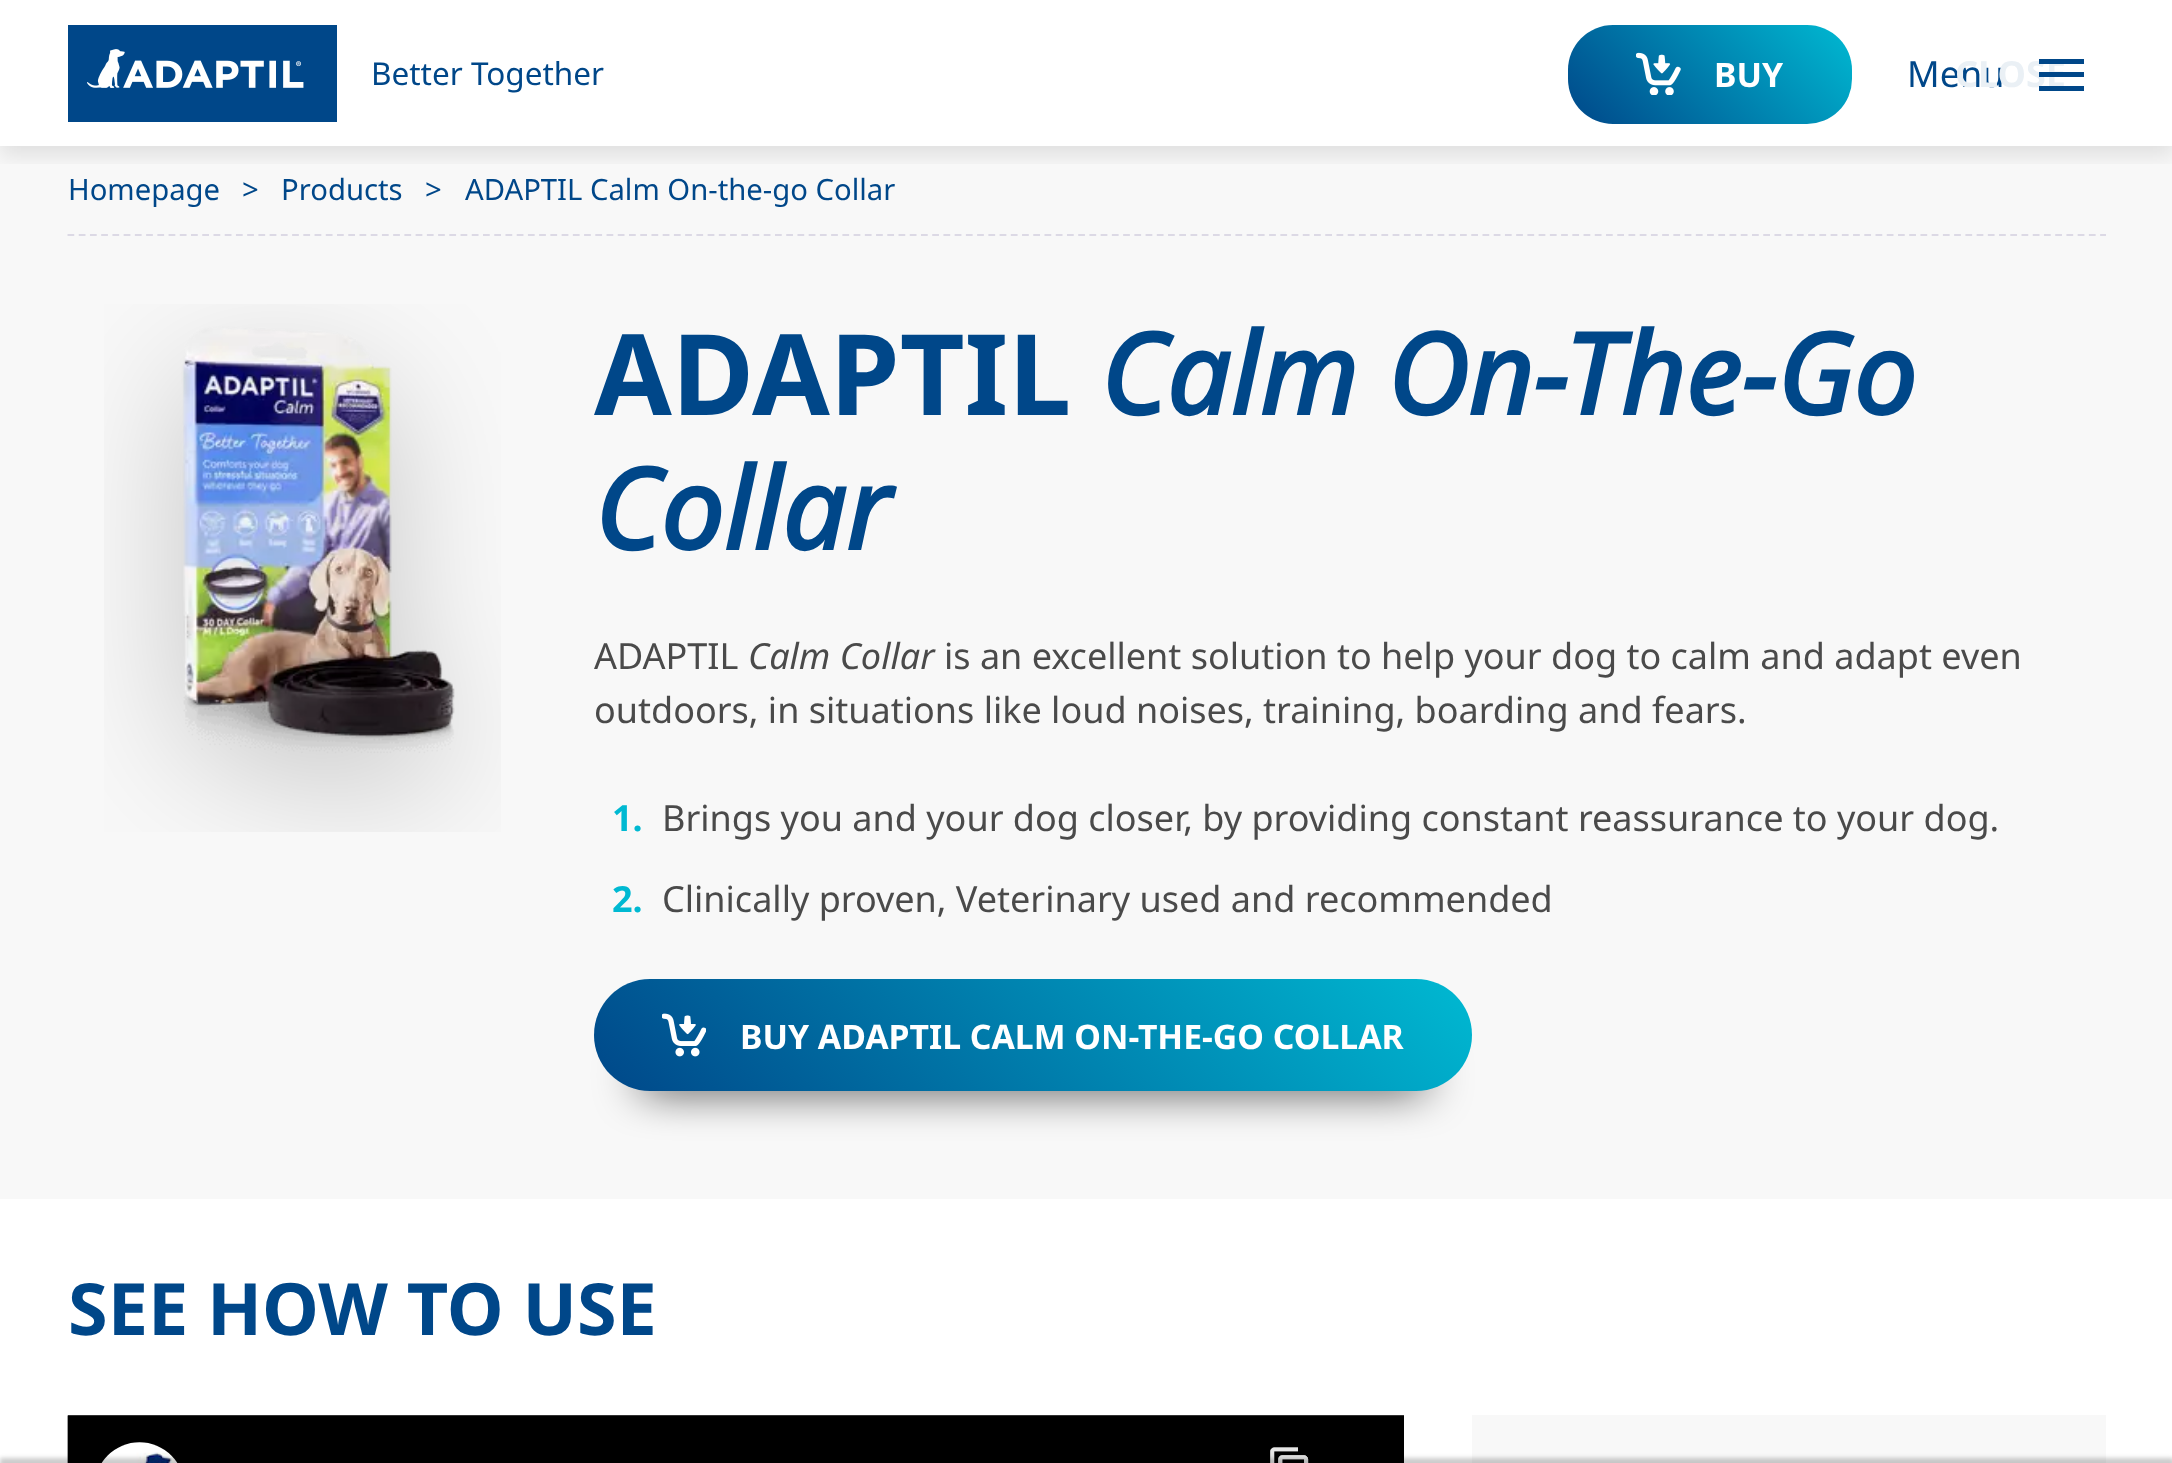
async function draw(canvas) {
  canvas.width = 2172
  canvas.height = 1463
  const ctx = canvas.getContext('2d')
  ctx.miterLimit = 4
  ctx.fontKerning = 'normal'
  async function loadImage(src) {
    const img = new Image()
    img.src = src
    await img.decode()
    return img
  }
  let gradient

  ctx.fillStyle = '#fff'
  ctx.fillRect(0, 0, 2172, 1463)
  ctx.fillStyle = '#f8f8f8'
  ctx.fillRect(0, 146, 2172, 1053)
  ctx.save()
  ctx.beginPath()
  ctx.rect(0, 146, 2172, 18)
  ctx.clip()
  ctx.fillStyle = '#0000001a'
  ctx.filter = 'blur(11px)'
  ctx.beginPath()
  ctx.rect(0, 9, 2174, 146)
  ctx.fill()
  ctx.filter = 'none'
  ctx.restore()
  ctx.drawImage(await loadImage('image0.png'), 68, 25, 269, 97)
  ctx.font = '31.5px Noto Sans'
  ctx.fillStyle = '#004789'
  ctx.fillText('Better Together', 371, 85)
  gradient = ctx.createLinearGradient(1614, 170, 1806, -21)
  gradient.addColorStop(0, '#004789')
  gradient.addColorStop(1, '#00b9d2')
  ctx.fillStyle = gradient
  ctx.beginPath()
  ctx.roundRect(1568, 25, 284, 99, 45)
  ctx.fill()
  ctx.drawImage(await loadImage('image1.png'), 1636, 52, 45, 43)
  ctx.font = 'bold 33.75px Noto Sans'
  ctx.fillStyle = '#fff'
  ctx.fillText('BUY', 1714, 87)
  ctx.font = '36px Noto Sans'
  ctx.fillStyle = '#004789'
  ctx.fillText('Menu', 1907, 87)
  ctx.font = 'bold 36px Noto Sans'
  ctx.fillStyle = '#eaf0f5'
  ctx.fillText('CLOSE', 1955, 87)
  ctx.fillStyle = '#004789'
  ctx.fillRect(2039, 59, 45, 5)
  ctx.fillRect(2039, 72, 45, 5)
  ctx.fillRect(2039, 86, 45, 5)
  ctx.drawImage(await loadImage('image4.png'), 67, 1415, 1337, 48)
  ctx.fillStyle = '#f8f8f8'
  ctx.fillRect(1472, 1415, 634, 48)
  ctx.fillStyle = '#00000033'
  ctx.filter = 'blur(2px)'
  ctx.beginPath()
  ctx.rect(0, 1458, 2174, 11)
  ctx.fill()
  ctx.filter = 'none'
  ctx.beginPath()
  ctx.moveTo(67.5, 235)
  ctx.lineTo(2106, 235)
  ctx.strokeStyle = '#dcd9e5'
  ctx.lineWidth = 2.2
  ctx.setLineDash([6.75, 4.48])
  ctx.stroke()
  ctx.font = '29.25px Noto Sans'
  ctx.fillStyle = '#004789'
  ctx.fillText('Homepage', 68, 200)
  ctx.fillText('>', 242, 200)
  ctx.fillText('Products', 281, 200)
  ctx.fillText('>', 425, 200)
  ctx.fillText('ADAPTIL Calm On-the-go Collar', 465, 200)
  ctx.drawImage(await loadImage('image2.png'), 104, 304, 397, 528)
  ctx.font = 'bold 112.5px Noto Sans'
  ctx.fillText('ADAPTIL', 594, 415)
  ctx.font = 'italic bold 112.5px Noto Sans'
  ctx.fillText('Calm On-The-Go', 1100, 415)
  ctx.fillText('Collar', 594, 550)
  ctx.font = '36px Noto Sans'
  ctx.fillStyle = '#4a4a4a'
  ctx.fillText('ADAPTIL', 594, 669)
  ctx.font = 'italic 36px Noto Sans'
  ctx.fillText('Calm Collar', 748, 669)
  ctx.font = '36px Noto Sans'
  ctx.fillText('is an excellent solution to help your dog to calm and adapt even', 944, 669)
  ctx.fillText('outdoors, in situations like loud noises, training, boarding and fears.', 594, 723)
  ctx.font = 'bold 36px Noto Sans'
  ctx.fillStyle = '#00b9d2'
  ctx.fillText('1.', 612, 831)
  ctx.font = '36px Noto Sans'
  ctx.fillStyle = '#4a4a4a'
  ctx.fillText('Brings you and your dog closer, by providing constant reassurance to your dog.', 662, 831)
  ctx.font = 'bold 36px Noto Sans'
  ctx.fillStyle = '#00b9d2'
  ctx.fillText('2.', 612, 912)
  ctx.font = '36px Noto Sans'
  ctx.fillStyle = '#4a4a4a'
  ctx.fillText('Clinically proven, Veterinary used and recommended', 662, 912)
  ctx.fillStyle = '#000'
  ctx.filter = 'blur(22.5px)'
  ctx.beginPath()
  ctx.roundRect(639, 1064, 788, 23, 11.5)
  ctx.fill()
  ctx.filter = 'none'
  gradient = ctx.createLinearGradient(785, 1283, 1280, 788)
  gradient.addColorStop(0, '#004789')
  gradient.addColorStop(1, '#00b9d2')
  ctx.fillStyle = gradient
  ctx.beginPath()
  ctx.roundRect(594, 979, 878, 112, 56)
  ctx.fill()
  ctx.drawImage(await loadImage('image3.png'), 662, 1013, 44, 44)
  ctx.font = 'bold 33.75px Noto Sans'
  ctx.fillStyle = '#fff'
  ctx.fillText('BUY ADAPTIL CALM ON-THE-GO COLLAR', 740, 1049)
  ctx.font = 'bold 72px Noto Sans'
  ctx.fillStyle = '#004789'
  ctx.fillText('SEE HOW TO USE', 68, 1335)
}

draw(document.querySelector('canvas'))
